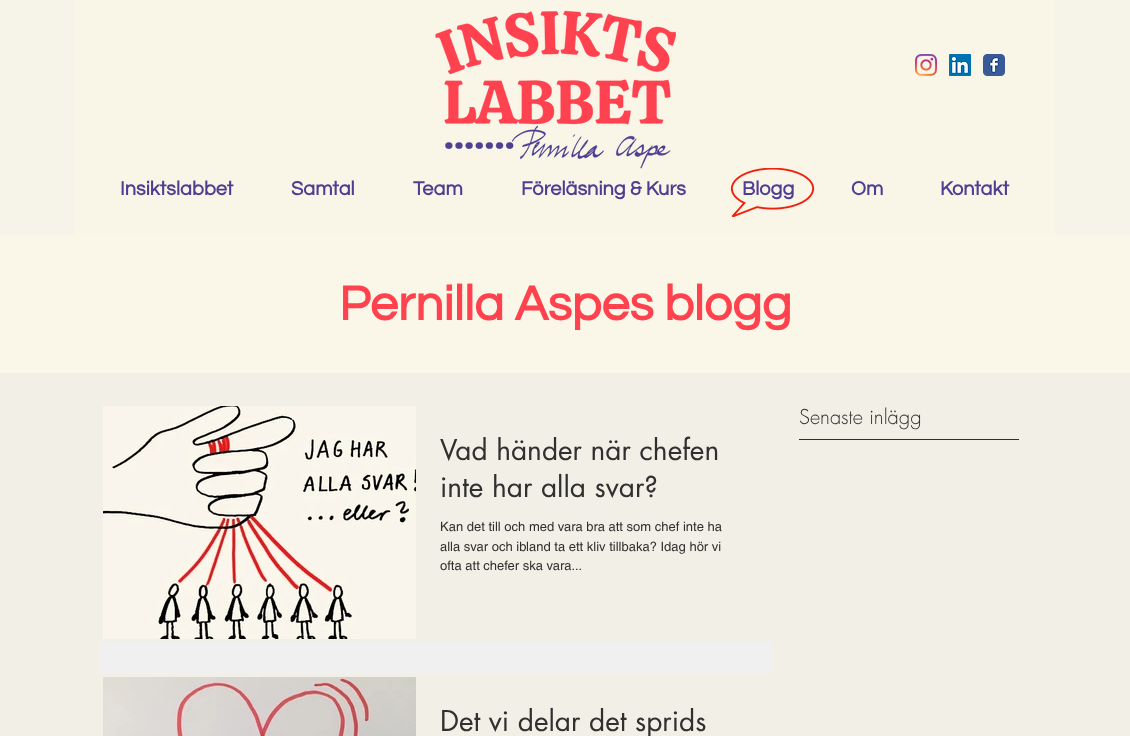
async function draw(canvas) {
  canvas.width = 1130
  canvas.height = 736
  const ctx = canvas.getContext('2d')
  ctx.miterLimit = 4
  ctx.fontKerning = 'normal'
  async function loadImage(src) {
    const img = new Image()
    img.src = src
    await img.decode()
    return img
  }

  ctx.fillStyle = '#f2efe6'
  ctx.fillRect(0, 0, 1130, 736)
  ctx.fillStyle = '#f6f4e8'
  ctx.fillRect(0, 0, 1130, 235)
  ctx.fillStyle = '#f9f6e8'
  ctx.fillRect(75, 0, 980, 235)
  ctx.drawImage(await loadImage('image0.png'), 435, 10, 241, 159)
  ctx.drawImage(await loadImage('image1.png'), 915, 54, 22, 22)
  ctx.drawImage(await loadImage('image2.png'), 949, 54, 22, 22)
  ctx.drawImage(await loadImage('image3.png'), 983, 54, 22, 22)
  ctx.drawImage(await loadImage('image4.png'), 730, 168, 85, 49)
  ctx.font = 'bold 20px Questrial'
  ctx.fillStyle = '#4e3e92'
  ctx.fillText('Insiktslabbet', 120, 195)
  ctx.fillText('Samtal', 291, 195)
  ctx.fillText('Team', 413, 195)
  ctx.fillText('Föreläsning & Kurs', 521, 195)
  ctx.fillText('Blogg', 742, 195)
  ctx.fillText('Om', 851, 195)
  ctx.fillText('Kontakt', 940, 195)
  ctx.fillStyle = '#faf7e8'
  ctx.fillRect(0, 235, 1130, 138)
  ctx.font = 'bold 50px Questrial'
  ctx.fillStyle = '#ff424e'
  ctx.fillText('Pernilla Aspes blogg', 339, 320)
  ctx.font = '300 20px futura'
  ctx.fillStyle = '#303030'
  ctx.fillText('Senaste inlägg', 799, 424)
  ctx.fillStyle = '#f0f0f0'
  ctx.fillRect(100, 642, 671, 32)
  ctx.drawImage(await loadImage('image5.png'), 103, 406, 313, 233)
  ctx.font = '28px futura'
  ctx.fillStyle = '#303030'
  ctx.fillText('Vad händer när chefen', 440, 460)
  ctx.fillText('inte har alla svar?', 440, 497)
  ctx.font = '13px helvetica'
  ctx.fillText('Kan det till och med vara bra att som chef inte ha', 440, 531)
  ctx.fillText('alla svar och ibland ta ett kliv tillbaka? Idag hör vi', 440, 551)
  ctx.fillText('ofta att chefer ska vara...', 440, 570)
  ctx.drawImage(await loadImage('image6.png'), 103, 677, 313, 59)
  ctx.font = '28px futura'
  ctx.fillText('Det vi delar det sprids', 440, 731)
  ctx.fillRect(799, 439, 220, 1)
}

draw(document.querySelector('canvas'))
